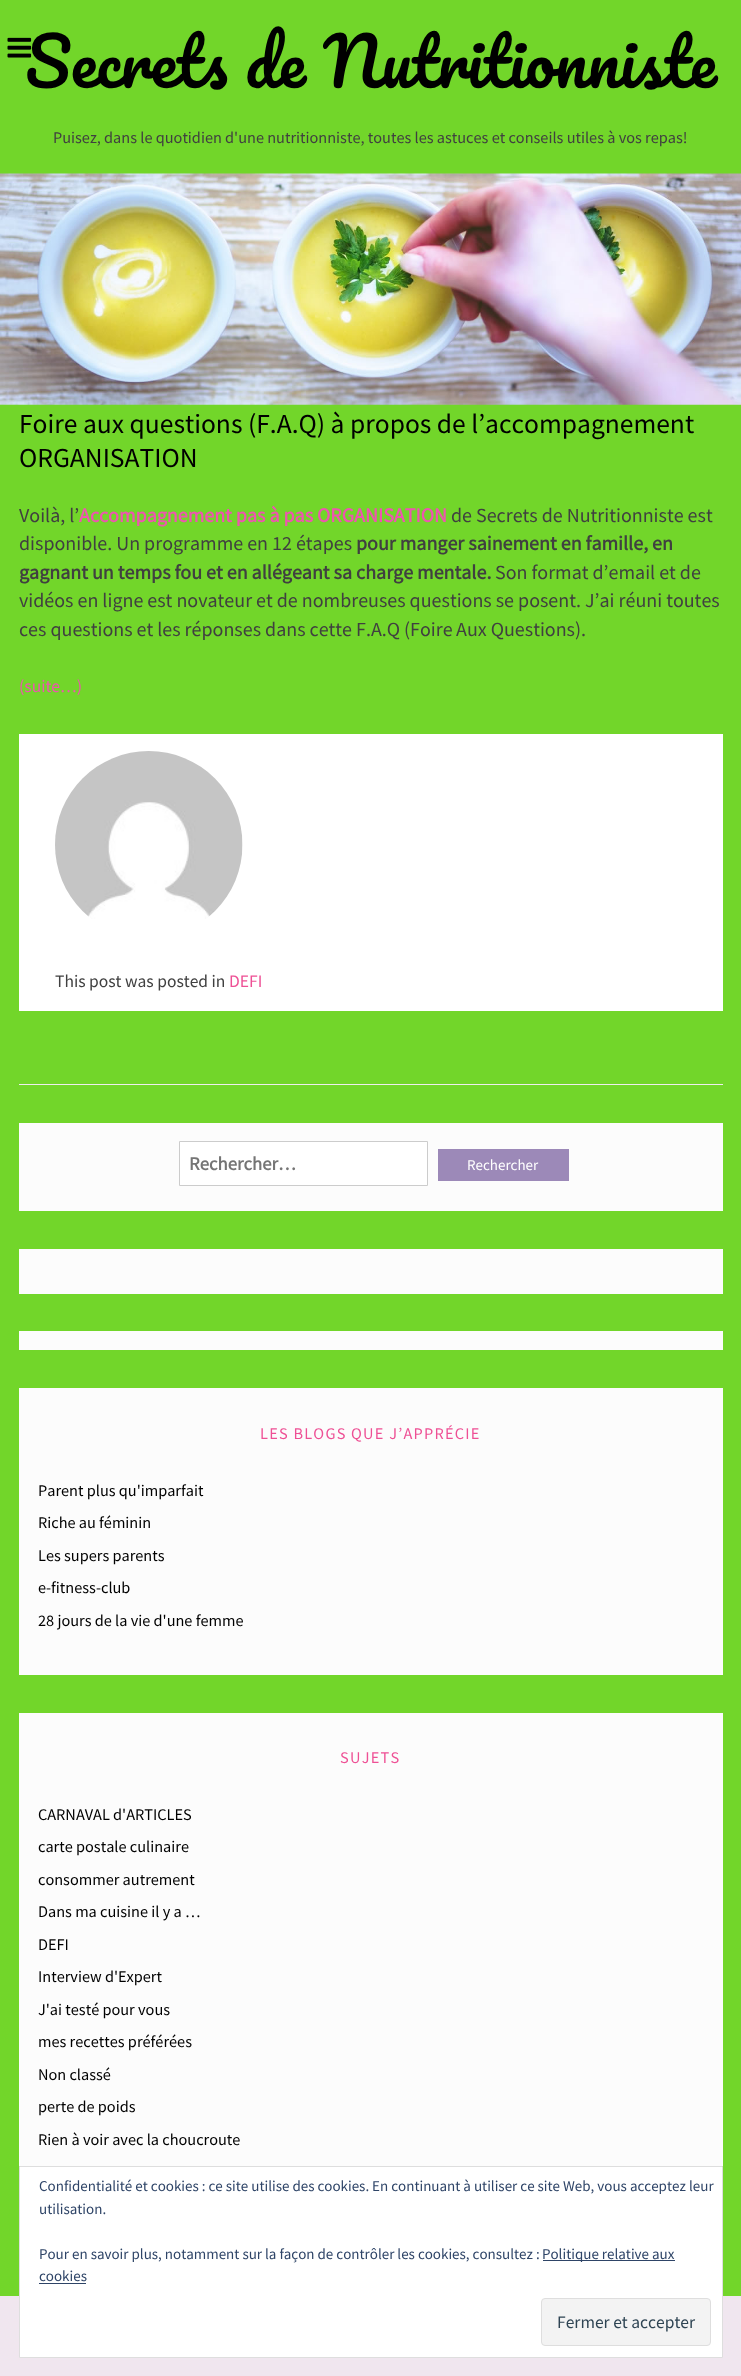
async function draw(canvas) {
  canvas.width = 741
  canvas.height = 2376
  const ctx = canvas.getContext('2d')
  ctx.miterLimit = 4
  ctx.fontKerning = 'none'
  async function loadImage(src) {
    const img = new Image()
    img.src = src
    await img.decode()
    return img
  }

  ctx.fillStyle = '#72d62a'
  ctx.fillRect(0, 0, 741, 2376)
  ctx.font = '65.6px Pacifico'
  ctx.fillStyle = '#000'
  ctx.fillText('Secrets de Nutritionniste', 25, 88)
  ctx.drawImage(await loadImage('image0.png'), 7, 37, 25, 21)
  ctx.font = '16.25px Source Sans Pro'
  ctx.fillStyle = '#404040'
  ctx.fillText('Puisez, dans le quotidien d\'une nutritionniste, toutes les astuces et conseils utiles à vos repas!', 53, 143)
  ctx.drawImage(await loadImage('image1.png'), 0, 173, 741, 232)
  ctx.font = '27.5px Source Sans Pro'
  ctx.fillStyle = '#000'
  ctx.fillText('Foire aux questions (F.A.Q) à propos de l’accompagnement', 19, 433)
  ctx.fillText('ORGANISATION', 19, 467)
  ctx.font = '20px Source Sans Pro'
  ctx.fillStyle = '#404040'
  ctx.fillText('Voilà, l’', 19, 522)
  ctx.font = 'bold 20px Source Sans Pro'
  ctx.fillStyle = '#ee55af'
  ctx.fillText('Accompagnement pas à pas ORGANISATION', 79, 522)
  ctx.font = '20px Source Sans Pro'
  ctx.fillStyle = '#404040'
  ctx.fillText('de Secrets de Nutritionniste est', 451, 522)
  ctx.fillText('disponible. Un programme en 12 étapes', 19, 550)
  ctx.font = 'bold 20px Source Sans Pro'
  ctx.fillText('pour manger sainement en famille, en', 356, 550)
  ctx.fillText('gagnant un temps fou et en allégeant sa charge mentale.', 19, 579)
  ctx.font = '20px Source Sans Pro'
  ctx.fillText('Son format d’email et de', 495, 579)
  ctx.fillText('vidéos en ligne est novateur et de nombreuses questions se posent. J’ai réuni toutes', 19, 607)
  ctx.fillText('ces questions et les réponses dans cette F.A.Q (Foire', 19, 636)
  ctx.fillText('Aux Questions).', 456, 636)
  ctx.font = '17.5px Source Sans Pro'
  ctx.fillStyle = '#ee55af'
  ctx.fillText('(suite…)', 19, 692)
  ctx.fillStyle = '#fff'
  ctx.fillRect(19, 734, 704, 277)
  ctx.drawImage(await loadImage('image2.png'), 55, 751, 188, 168)
  ctx.fillStyle = '#404040'
  ctx.fillText('This post was posted in', 55, 987)
  ctx.fillStyle = '#ee5095'
  ctx.fillText('DEFI', 229, 987)
  ctx.fillStyle = '#eee'
  ctx.fillRect(19, 1084, 704, 1)
  ctx.fillStyle = '#fcfcfc'
  ctx.fillRect(19, 1123, 704, 88)
  ctx.fillStyle = '#fff'
  ctx.beginPath()
  ctx.rect(179.5, 1141.5, 248, 44)
  ctx.fill()
  ctx.strokeStyle = '#ccc'
  ctx.stroke()
  ctx.font = 'bold 18.75px Source Sans Pro'
  ctx.fillStyle = '#757575'
  ctx.fillText('Rechercher…', 189, 1170)
  ctx.fillStyle = '#9c89b8'
  ctx.fillRect(438, 1149, 131, 32)
  ctx.font = '15px Source Sans Pro'
  ctx.fillStyle = '#fff'
  ctx.fillText('Rechercher', 467, 1170)
  ctx.fillStyle = '#fcfcfc'
  ctx.fillRect(19, 1249, 704, 45)
  ctx.fillRect(19, 1331, 704, 19)
  ctx.fillRect(19, 1388, 704, 287)
  ctx.letterSpacing = '1.25px'
  ctx.font = '16.25px Source Sans Pro'
  ctx.fillStyle = '#ee5095'
  ctx.fillText('LES BLOGS QUE J’APPRÉCIE', 260, 1439)
  ctx.letterSpacing = '0px'
  ctx.fillStyle = '#000'
  ctx.fillText('Parent plus qu\'imparfait', 38, 1496)
  ctx.fillText('Riche au féminin', 38, 1528)
  ctx.fillText('Les supers parents', 38, 1561)
  ctx.fillText('e-fitness-club', 38, 1593)
  ctx.fillText('28 jours de la vie d\'une femme', 38, 1626)
  ctx.fillStyle = '#fcfcfc'
  ctx.fillRect(19, 1713, 704, 453)
  ctx.letterSpacing = '1.25px'
  ctx.fillStyle = '#ee5095'
  ctx.fillText('SUJETS', 340, 1763)
  ctx.letterSpacing = '0px'
  ctx.fillStyle = '#000'
  ctx.fillText('CARNAVAL d\'ARTICLES', 38, 1820)
  ctx.fillText('carte postale culinaire', 38, 1852)
  ctx.fillText('consommer autrement', 38, 1885)
  ctx.fillText('Dans ma cuisine il y a …', 38, 1917)
  ctx.fillText('DEFI', 38, 1950)
  ctx.fillText('Interview d\'Expert', 38, 1982)
  ctx.fillText('J\'ai testé pour vous', 38, 2015)
  ctx.fillText('mes recettes préférées', 38, 2047)
  ctx.fillText('Non classé', 38, 2080)
  ctx.fillText('perte de poids', 38, 2112)
  ctx.fillText('Rien à voir avec la choucroute', 38, 2145)
  ctx.fillStyle = '#f0e6ef'
  ctx.fillRect(0, 2296, 741, 80)
  ctx.fillStyle = '#fff'
  ctx.beginPath()
  ctx.rect(19.5, 2166.5, 703, 191)
  ctx.fill()
  ctx.strokeStyle = '#dedede'
  ctx.stroke()
  ctx.font = '15px Source Sans Pro'
  ctx.fillStyle = '#2e4467'
  ctx.fillText('Confidentialité et cookies : ce site utilise des cookies. En continuant à utiliser ce site Web, vous acceptez', 39, 2191)
  ctx.fillText('leur', 689, 2191)
  ctx.fillText('utilisation.', 39, 2214)
  ctx.fillText('Pour en savoir plus, notamment sur la façon de contrôler les cookies, consultez :', 39, 2259)
  ctx.fillRect(543, 2260, 132, 1)
  ctx.fillText('Politique relative aux', 542, 2259)
  ctx.fillText('cookies', 39, 2281)
  ctx.fillRect(39, 2283, 47, 1)
  ctx.fillStyle = '#f3f3f3'
  ctx.beginPath()
  ctx.roundRect(541.5, 2298.5, 169, 47, 3.5)
  ctx.fill()
  ctx.stroke()
  ctx.font = '17.5px Source Sans Pro'
  ctx.fillStyle = '#2e4453'
  ctx.fillText('Fermer et accepter', 557, 2328)
}

draw(document.querySelector('canvas'))
